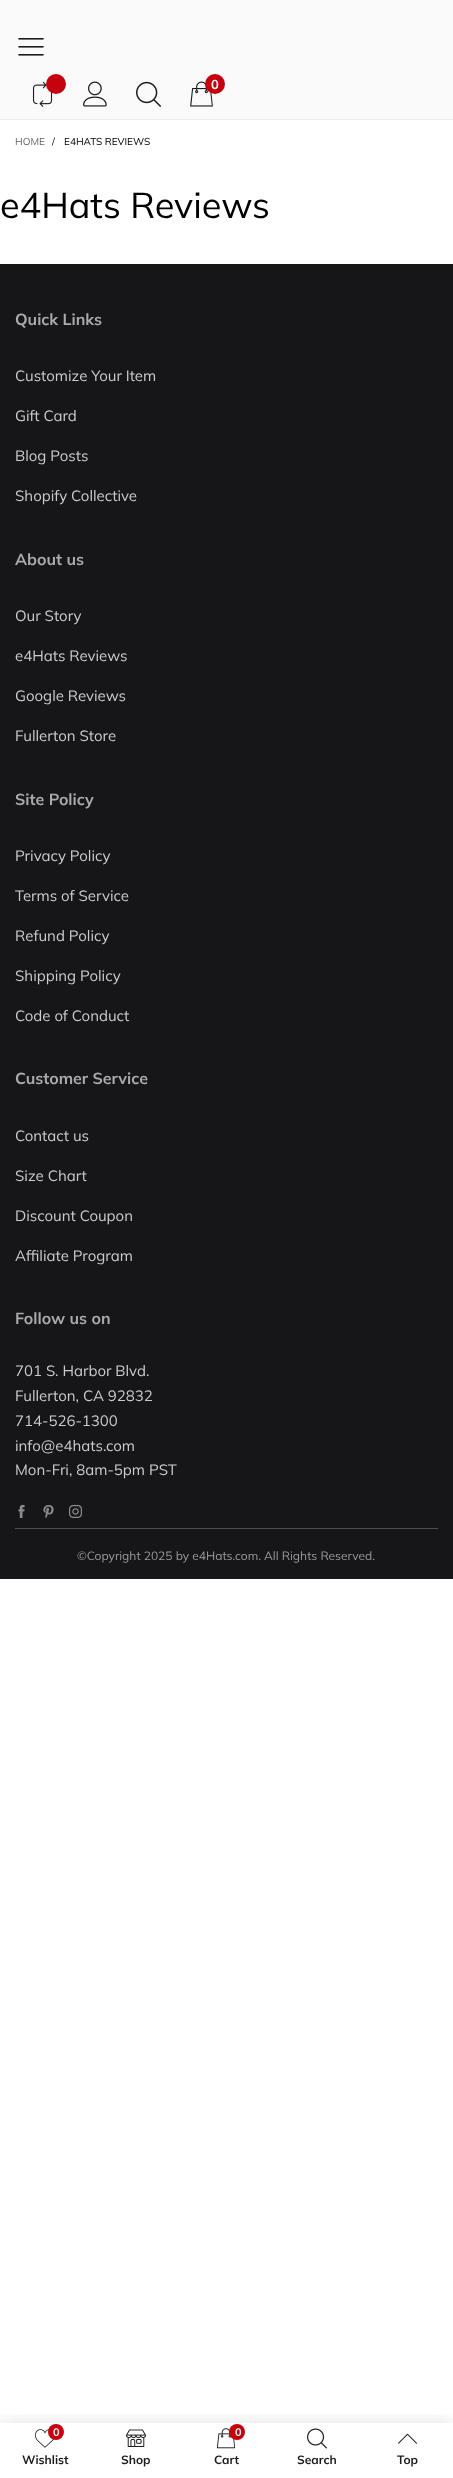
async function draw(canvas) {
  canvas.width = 453
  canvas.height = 2478
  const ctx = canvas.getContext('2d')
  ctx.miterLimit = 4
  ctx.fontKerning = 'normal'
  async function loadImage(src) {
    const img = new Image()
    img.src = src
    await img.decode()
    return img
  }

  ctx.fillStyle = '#fff'
  ctx.fillRect(0, 0, 453, 2478)
  ctx.fillStyle = '#fafafa'
  ctx.fillRect(0, 0, 453, 119)
  ctx.fillStyle = '#eee'
  ctx.fillRect(0, 119, 453, 1)
  ctx.drawImage(await loadImage('image0.png'), 18, 38, 26, 18)
  ctx.drawImage(await loadImage('image1.png'), 32, 81, 21, 26)
  ctx.fillStyle = '#c7020f'
  ctx.beginPath()
  ctx.arc(56, 84, 10, 0, 2 * Math.PI)
  ctx.fill()
  ctx.drawImage(await loadImage('image2.png'), 83, 81, 24, 26)
  ctx.drawImage(await loadImage('image3.png'), 136, 81, 25, 26)
  ctx.drawImage(await loadImage('image4.png'), 190, 81, 23, 26)
  ctx.beginPath()
  ctx.arc(215, 84, 10, 0, 2 * Math.PI)
  ctx.fill()
  ctx.font = 'bold 13px Muli'
  ctx.fillStyle = '#fff'
  ctx.fillText('0', 211, 89)
  ctx.font = '10px Muli'
  ctx.fillStyle = '#666'
  ctx.fillText('HOME', 15, 145)
  ctx.fillStyle = '#000'
  ctx.fillText('/', 52, 145)
  ctx.fillText('E4HATS REVIEWS', 64, 145)
  ctx.font = '36px Muli'
  ctx.fillText('e4Hats Reviews', 0, 218)
  ctx.fillStyle = '#161619'
  ctx.fillRect(0, 264, 453, 1315)
  ctx.font = 'bold 16px Muli'
  ctx.fillStyle = '#aaa'
  ctx.fillText('Quick Links', 15, 325)
  ctx.font = '15px Muli'
  ctx.fillStyle = '#cccbcb'
  ctx.fillText('Customize Your Item', 15, 381)
  ctx.fillText('Gift Card', 15, 421)
  ctx.fillText('Blog Posts', 15, 461)
  ctx.fillText('Shopify Collective', 15, 501)
  ctx.font = 'bold 16px Muli'
  ctx.fillStyle = '#aaa'
  ctx.fillText('About us', 15, 565)
  ctx.font = '15px Muli'
  ctx.fillStyle = '#cccbcb'
  ctx.fillText('Our Story', 15, 621)
  ctx.fillText('e4Hats Reviews', 15, 661)
  ctx.fillText('Google Reviews', 15, 701)
  ctx.fillText('Fullerton Store', 15, 741)
  ctx.font = 'bold 16px Muli'
  ctx.fillStyle = '#aaa'
  ctx.fillText('Site Policy', 15, 805)
  ctx.font = '15px Muli'
  ctx.fillStyle = '#cccbcb'
  ctx.fillText('Privacy Policy', 15, 861)
  ctx.fillText('Terms of Service', 15, 901)
  ctx.fillText('Refund Policy', 15, 941)
  ctx.fillText('Shipping Policy', 15, 981)
  ctx.fillText('Code of Conduct', 15, 1021)
  ctx.font = 'bold 16px Muli'
  ctx.fillStyle = '#aaa'
  ctx.fillText('Customer Service', 15, 1084)
  ctx.font = '15px Muli'
  ctx.fillStyle = '#cccbcb'
  ctx.fillText('Contact us', 15, 1141)
  ctx.fillText('Size Chart', 15, 1181)
  ctx.fillText('Discount Coupon', 15, 1221)
  ctx.fillText('Affiliate Program', 15, 1261)
  ctx.font = 'bold 16px Muli'
  ctx.fillStyle = '#aaa'
  ctx.fillText('Follow us on', 15, 1324)
  ctx.font = '15px Muli'
  ctx.fillStyle = '#cccbcb'
  ctx.fillText('701 S. Harbor Blvd.', 15, 1376)
  ctx.fillText('Fullerton, CA 92832', 15, 1401)
  ctx.fillText('714-526-1300', 15, 1426)
  ctx.fillText('info@e4hats.com', 15, 1451)
  ctx.fillText('Mon-Fri, 8am-5pm PST', 15, 1475)
  ctx.drawImage(await loadImage('image5.png'), 18, 1504, 7, 14)
  ctx.drawImage(await loadImage('image6.png'), 43, 1505, 11, 13)
  ctx.drawImage(await loadImage('image7.png'), 69, 1504, 13, 14)
  ctx.fillStyle = '#4e4e4e'
  ctx.fillRect(15, 1528, 423, 1)
  ctx.font = '12px Muli'
  ctx.fillStyle = '#999'
  ctx.fillText('©Copyright 2025 by e4Hats.com. All Rights Reserved.', 77, 1560)
  ctx.save()
  ctx.beginPath()
  ctx.rect(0, 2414, 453, 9)
  ctx.clip()
  ctx.fillStyle = '#0000001a'
  ctx.filter = 'blur(9.5px)'
  ctx.beginPath()
  ctx.rect(0, 2422, 453, 55)
  ctx.fill()
  ctx.filter = 'none'
  ctx.restore()
  ctx.drawImage(await loadImage('image8.png'), 35, 2429, 19, 19)
  ctx.fillStyle = '#c7020f'
  ctx.beginPath()
  ctx.arc(56, 2432, 8, 0, 2 * Math.PI)
  ctx.fill()
  ctx.letterSpacing = '-1px'
  ctx.font = 'bold 11px Muli'
  ctx.fillStyle = '#fff'
  ctx.fillText('0', 53, 2436)
  ctx.letterSpacing = '0px'
  ctx.font = 'bold 12px Muli'
  ctx.fillStyle = '#1c1c1c'
  ctx.fillText('Wishlist', 22, 2464)
  ctx.drawImage(await loadImage('image9.png'), 126, 2429, 20, 18)
  ctx.fillText('Shop', 121, 2464)
  ctx.drawImage(await loadImage('image10.png'), 216, 2428, 20, 21)
  ctx.fillStyle = '#c7020f'
  ctx.beginPath()
  ctx.arc(237, 2432, 8, 0, 2 * Math.PI)
  ctx.fill()
  ctx.letterSpacing = '-1px'
  ctx.font = 'bold 11px Muli'
  ctx.fillStyle = '#fff'
  ctx.fillText('0', 235, 2436)
  ctx.letterSpacing = '0px'
  ctx.font = 'bold 12px Muli'
  ctx.fillStyle = '#1c1c1c'
  ctx.fillText('Cart', 214, 2464)
  ctx.drawImage(await loadImage('image11.png'), 307, 2428, 20, 21)
  ctx.fillText('Search', 297, 2464)
  ctx.drawImage(await loadImage('image12.png'), 398, 2433, 19, 11)
  ctx.fillText('Top', 397, 2464)
}

draw(document.querySelector('canvas'))
